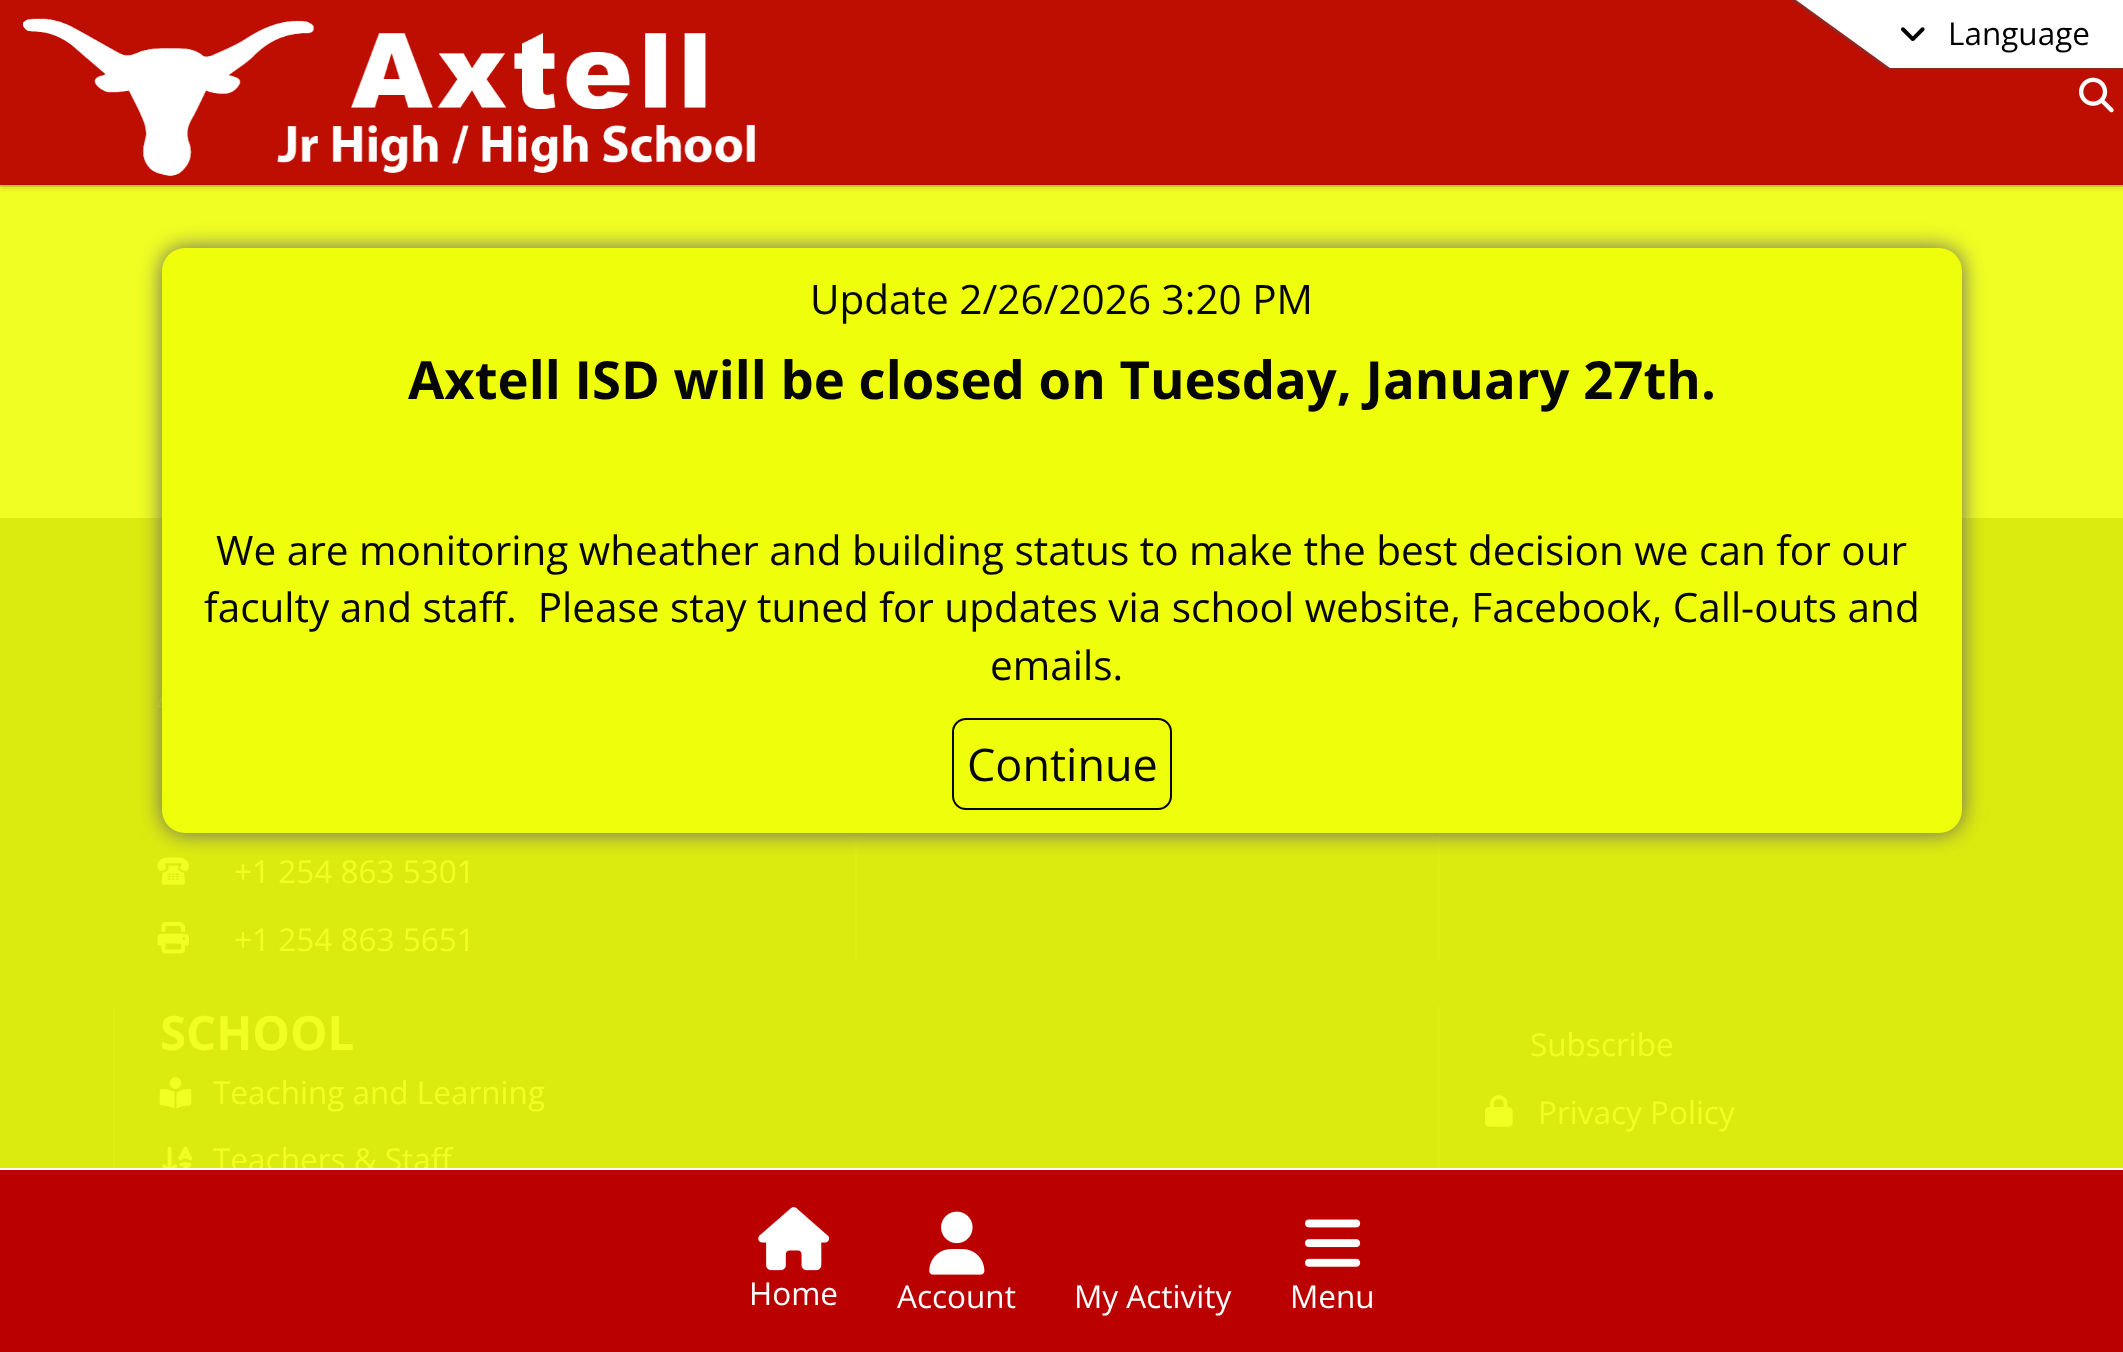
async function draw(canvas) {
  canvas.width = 2123
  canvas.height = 1352
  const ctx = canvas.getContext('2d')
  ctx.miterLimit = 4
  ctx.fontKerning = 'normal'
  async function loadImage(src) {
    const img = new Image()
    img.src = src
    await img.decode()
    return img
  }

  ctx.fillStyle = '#f0fe23'
  ctx.fillRect(0, 0, 2123, 1352)
  ctx.fillStyle = '#d8e51f'
  ctx.fillRect(0, 184, 2123, 3)
  ctx.save()
  ctx.beginPath()
  ctx.moveTo(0, 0)
  ctx.lineTo(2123, 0)
  ctx.lineTo(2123, 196)
  ctx.lineTo(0, 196)
  ctx.closePath()
  ctx.moveTo(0, 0)
  ctx.lineTo(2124, 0)
  ctx.lineTo(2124, 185)
  ctx.lineTo(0, 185)
  ctx.closePath()
  ctx.clip('evenodd')
  ctx.fillStyle = '#0000001a'
  ctx.filter = 'blur(2px)'
  ctx.beginPath()
  ctx.rect(0, 5, 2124, 184)
  ctx.fill()
  ctx.filter = 'none'
  ctx.restore()
  ctx.fillStyle = '#bb0000f2'
  ctx.fillRect(0, 0, 2123, 185)
  ctx.fillStyle = '#90261f'
  ctx.beginPath()
  ctx.moveTo(1791, 0)
  ctx.lineTo(1888, 70)
  ctx.lineTo(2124, 70)
  ctx.lineTo(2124, 0)
  ctx.closePath()
  ctx.fill()
  ctx.fillStyle = '#fff'
  ctx.beginPath()
  ctx.moveTo(1796, 0)
  ctx.lineTo(1890, 68)
  ctx.lineTo(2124, 68)
  ctx.lineTo(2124, 0)
  ctx.closePath()
  ctx.fill()
  ctx.drawImage(await loadImage('image0.png'), 1901, 27, 24, 14)
  ctx.font = '31.5px Open Sans'
  ctx.fillStyle = '#000'
  ctx.fillText('Language', 1948, 45)
  ctx.drawImage(await loadImage('image1.png'), 23, 18, 733, 158)
  ctx.drawImage(await loadImage('image2.png'), 2079, 77, 35, 36)
  ctx.fillStyle = '#dceb0f'
  ctx.fillRect(0, 518, 2123, 650)
  ctx.drawImage(await loadImage('image3.png'), 157, 695, 5, 12)
  ctx.drawImage(await loadImage('image4.png'), 157, 857, 32, 28)
  ctx.fillStyle = '#deed12'
  ctx.fillRect(855, 833, 2, 128)
  ctx.fillRect(1438, 833, 2, 128)
  ctx.fillStyle = '#666'
  ctx.filter = 'blur(11px)'
  ctx.beginPath()
  ctx.roundRect(162, 248, 1800, 585, 23)
  ctx.fill()
  ctx.filter = 'none'
  ctx.fillStyle = '#efff0b'
  ctx.beginPath()
  ctx.roundRect(162, 248, 1800, 585, 23)
  ctx.fill()
  ctx.font = '40.5px Open Sans'
  ctx.fillStyle = '#060606'
  ctx.fillText('Update 2/26/2026 3:20 PM', 810, 314)
  ctx.font = 'bold 52.65px Open Sans'
  ctx.fillText('Axtell ISD will be closed on Tuesday, January 27th.', 408, 399)
  ctx.font = '40.5px Open Sans'
  ctx.fillText('We are monitoring wheather and building status to make the best decision we can for our', 216, 565)
  ctx.fillText('faculty and staff.  Please stay tuned for updates via school website, Facebook, Call-outs and', 204, 622)
  ctx.fillText('emails.', 990, 680)
  ctx.beginPath()
  ctx.roundRect(953, 719, 218, 90, 13)
  ctx.strokeStyle = '#060606'
  ctx.lineWidth = 2
  ctx.stroke()
  ctx.font = '45px Open Sans'
  ctx.fillText('Continue', 967, 781)
  ctx.font = '31.5px Open Sans'
  ctx.fillStyle = '#f1ff23'
  ctx.fillText('+1 254 863 5301', 234, 883)
  ctx.drawImage(await loadImage('image5.png'), 157, 921, 32, 33)
  ctx.fillText('+1 254 863 5651', 234, 951)
  ctx.fillStyle = '#deed12'
  ctx.fillRect(113, 1006, 2, 162)
  ctx.font = 'bold 47.25px Open Sans'
  ctx.fillStyle = '#f1ff23'
  ctx.fillText('SCHOOL', 160, 1050)
  ctx.drawImage(await loadImage('image6.png'), 159, 1077, 33, 32)
  ctx.font = '31.5px Open Sans'
  ctx.fillText('Teaching and Learning', 213, 1104)
  ctx.drawImage(await loadImage('image7.png'), 162, 1146, 31, 22)
  ctx.fillText('Teachers & Staff', 213, 1171)
  ctx.fillStyle = '#deed12'
  ctx.fillRect(1438, 1006, 2, 162)
  ctx.fillStyle = '#f1ff23'
  ctx.fillText('Subscribe', 1530, 1056)
  ctx.drawImage(await loadImage('image8.png'), 1485, 1095, 28, 32)
  ctx.fillText('Privacy Policy', 1538, 1124)
  ctx.fillStyle = '#b00'
  ctx.fillRect(0, 1170, 2123, 182)
  ctx.fillStyle = '#fff'
  ctx.fillRect(0, 1168, 2123, 2)
  ctx.drawImage(await loadImage('image9.png'), 758, 1207, 72, 64)
  ctx.fillText('Home', 749, 1305)
  ctx.drawImage(await loadImage('image10.png'), 929, 1211, 56, 64)
  ctx.fillText('Account', 897, 1308)
  ctx.fillText('My Activity', 1074, 1308)
  ctx.drawImage(await loadImage('image11.png'), 1305, 1219, 56, 48)
  ctx.fillText('Menu', 1290, 1308)
}

draw(document.querySelector('canvas'))
